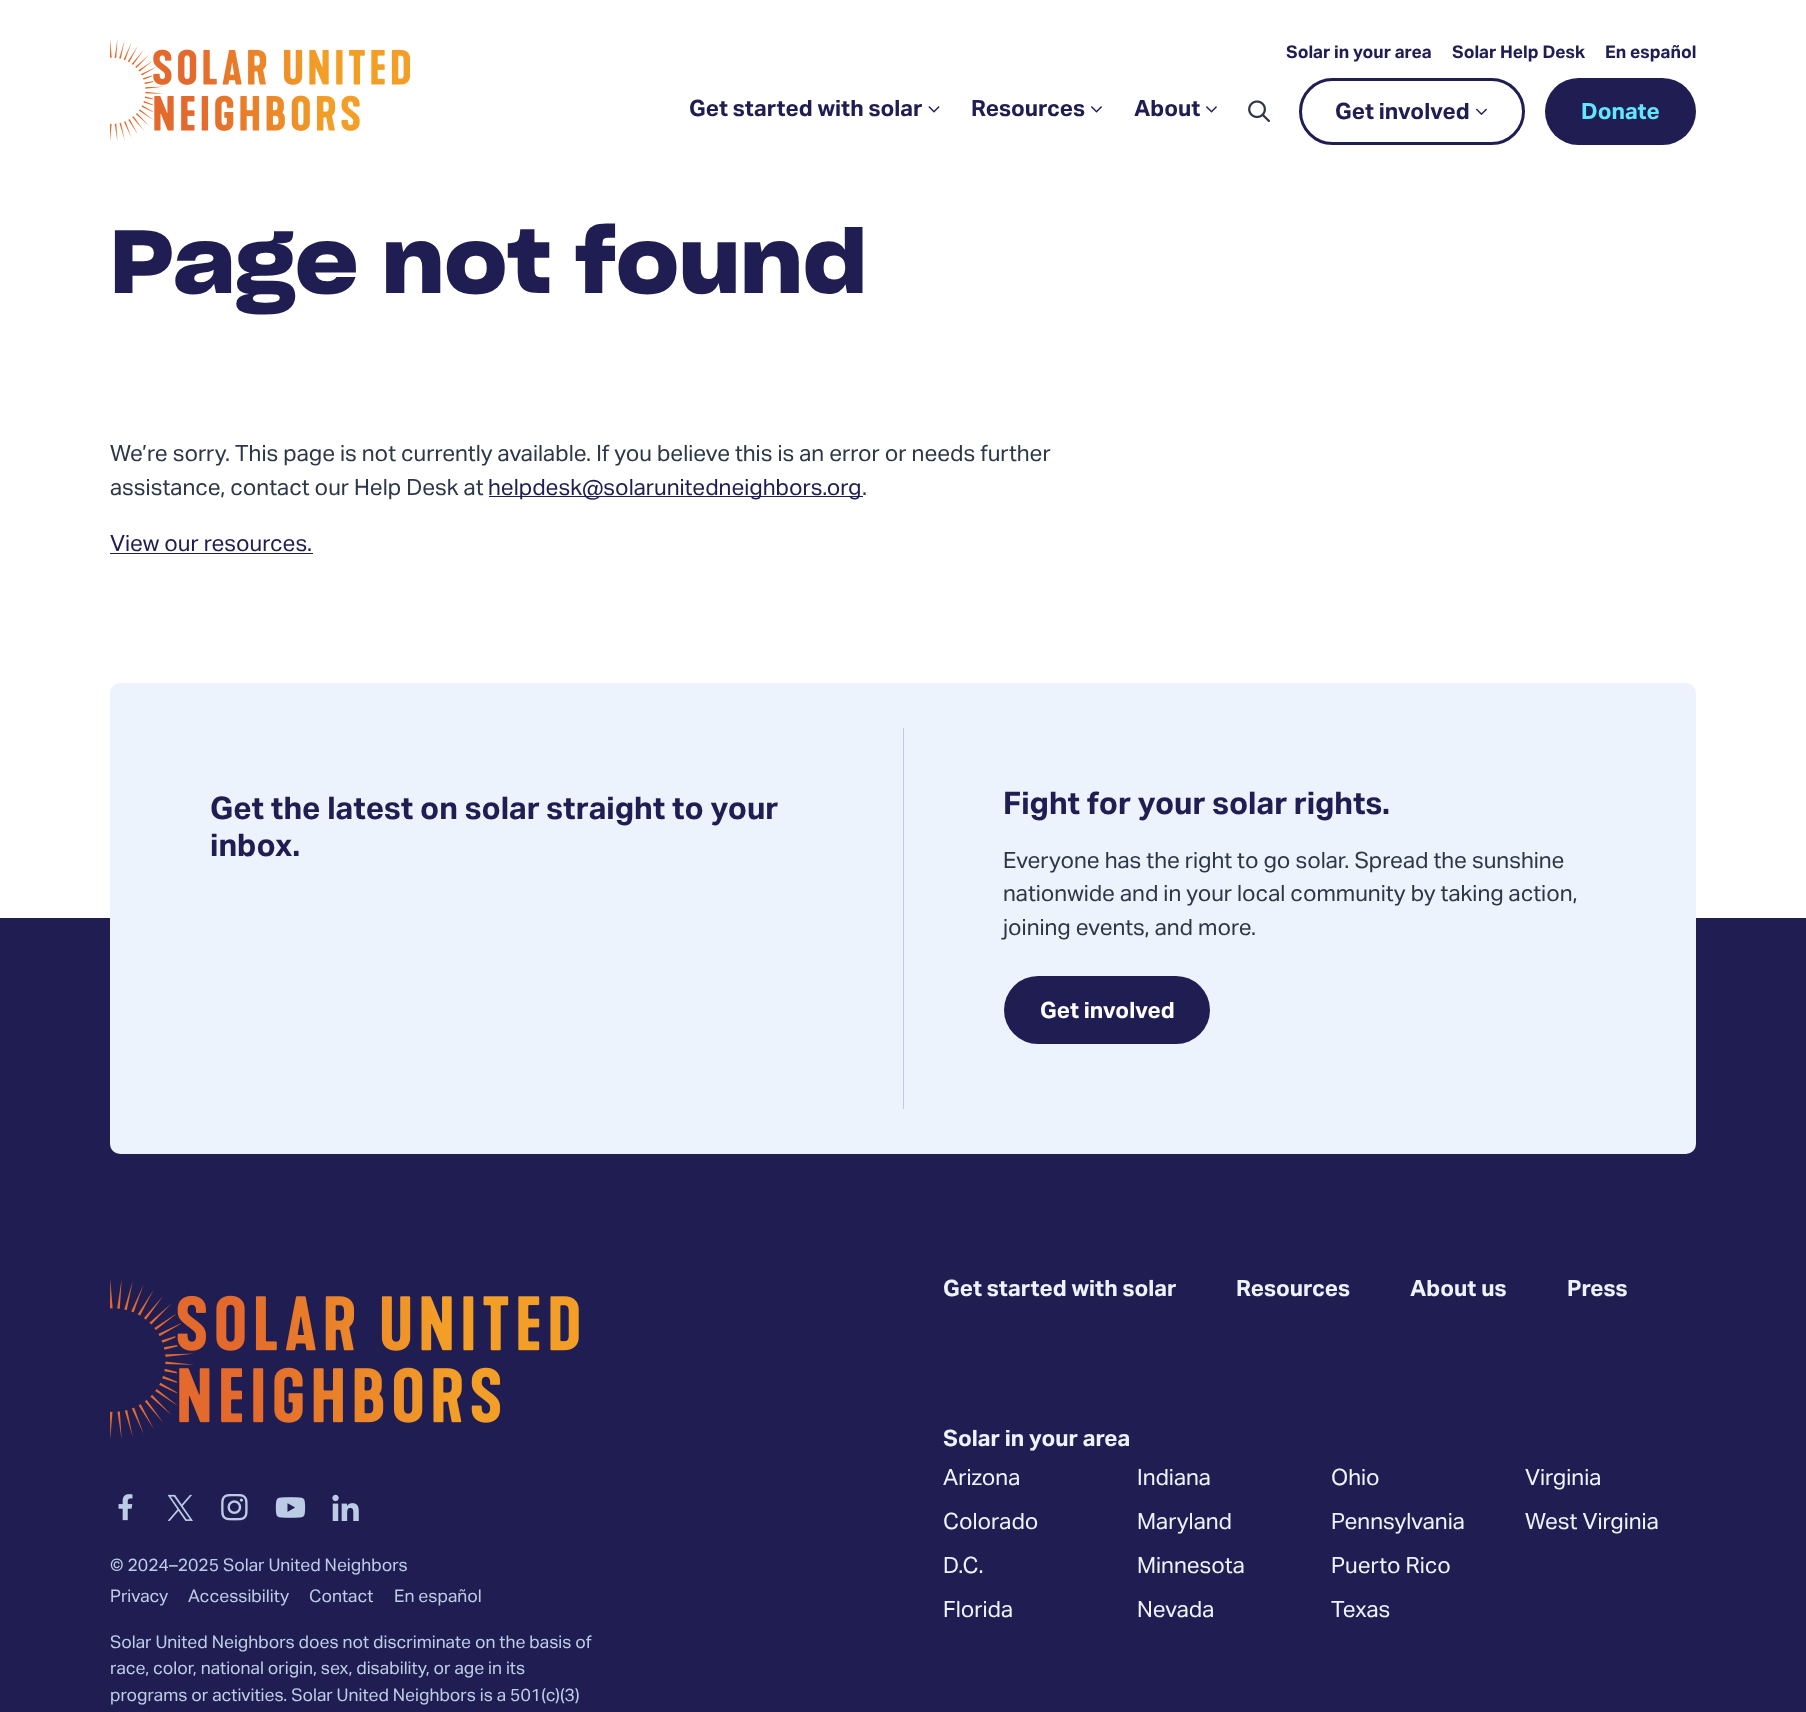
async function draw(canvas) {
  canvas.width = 1806
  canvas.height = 1712
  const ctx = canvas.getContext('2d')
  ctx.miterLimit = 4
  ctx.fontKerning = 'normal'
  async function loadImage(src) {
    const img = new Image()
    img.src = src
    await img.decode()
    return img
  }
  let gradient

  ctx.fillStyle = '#fff'
  ctx.fillRect(0, 0, 1806, 1712)
  ctx.drawImage(await loadImage('image0.png'), 110, 39, 300, 102)
  ctx.font = 'bold 17.5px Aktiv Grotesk'
  ctx.fillStyle = '#201d53'
  ctx.fillText('Solar in your area', 1286, 58)
  ctx.fillText('Solar Help Desk', 1452, 58)
  ctx.fillText('En español', 1605, 58)
  ctx.font = 'bold 22.5px Aktiv Grotesk'
  ctx.fillText('Get started with solar', 689, 116)
  ctx.drawImage(await loadImage('image1.png'), 928, 106, 12, 7)
  ctx.fillText('Resources', 971, 116)
  ctx.drawImage(await loadImage('image2.png'), 1091, 106, 11, 7)
  ctx.fillText('About', 1134, 116)
  ctx.drawImage(await loadImage('image2.png'), 1206, 106, 11, 7)
  ctx.drawImage(await loadImage('image3.png'), 1248, 100, 22, 22)
  ctx.beginPath()
  ctx.roundRect(1300.5, 79.5, 223, 64, 32)
  ctx.strokeStyle = '#201d53'
  ctx.lineWidth = 3
  ctx.stroke()
  ctx.fillText('Get involved', 1335, 119)
  ctx.drawImage(await loadImage('image4.png'), 1476, 108, 11, 8)
  ctx.beginPath()
  ctx.roundRect(1545, 78, 151, 67, 33.5)
  ctx.fill()
  ctx.fillStyle = '#61e7ff'
  ctx.fillText('Donate', 1581, 119)
  ctx.font = 'bold 87.5px "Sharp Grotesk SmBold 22"'
  ctx.fillStyle = '#201d53'
  ctx.fillText('Page not found', 110, 293)
  ctx.font = '22.5px Aktiv Grotesk'
  ctx.fillStyle = '#2d3748'
  ctx.fillText('We’re sorry. This page is not currently available. If you believe this is an error or needs further', 110, 461)
  ctx.fillText('assistance, contact our Help Desk at', 110, 495)
  ctx.fillStyle = '#201d53'
  ctx.fillRect(489, 496, 374, 1)
  ctx.fillText('helpdesk@solarunitedneighbors.org', 488, 495)
  ctx.fillStyle = '#2d3748'
  ctx.fillText('.', 862, 495)
  ctx.fillStyle = '#201d53'
  ctx.fillText('View our resources.', 110, 551)
  ctx.fillRect(110, 553, 203, 1)
  gradient = ctx.createLinearGradient(903, 682, 903, 1154)
  gradient.addColorStop(0, '#fff')
  gradient.addColorStop(0.5, '#fff')
  gradient.addColorStop(0.5, '#201d53')
  gradient.addColorStop(1, '#201d53')
  ctx.fillStyle = gradient
  ctx.fillRect(0, 918, 1806, 236)
  ctx.fillStyle = '#edf3fc'
  ctx.beginPath()
  ctx.roundRect(110, 683, 1586, 471, 10)
  ctx.fill()
  ctx.fillStyle = '#bdcce5'
  ctx.fillRect(903, 728, 1, 381)
  ctx.font = 'bold 31.25px Aktiv Grotesk'
  ctx.fillStyle = '#201d53'
  ctx.fillText('Get the latest on solar straight to your', 210, 819)
  ctx.fillText('inbox.', 210, 856)
  ctx.fillText('Fight for your solar rights.', 1003, 814)
  ctx.font = '22.5px Aktiv Grotesk'
  ctx.fillStyle = '#2d3748'
  ctx.fillText('Everyone has the right to go solar. Spread the sunshine', 1003, 868)
  ctx.fillText('nationwide and in your local community by taking action,', 1003, 901)
  ctx.fillText('joining events, and more.', 1003, 935)
  ctx.fillStyle = '#201d53'
  ctx.beginPath()
  ctx.roundRect(1004, 976, 206, 68, 34)
  ctx.fill()
  ctx.font = 'bold 22.5px Aktiv Grotesk'
  ctx.fillStyle = '#fff'
  ctx.fillText('Get involved', 1040, 1018)
  ctx.fillStyle = '#201d53'
  ctx.fillRect(0, 1154, 1806, 558)
  ctx.drawImage(await loadImage('image5.png'), 110, 1279, 469, 161)
  ctx.drawImage(await loadImage('image6.png'), 118, 1494, 15, 27)
  ctx.drawImage(await loadImage('image7.png'), 168, 1494, 25, 27)
  ctx.drawImage(await loadImage('image8.png'), 221, 1494, 27, 27)
  ctx.drawImage(await loadImage('image9.png'), 275, 1497, 31, 21)
  ctx.drawImage(await loadImage('image10.png'), 332, 1494, 27, 27)
  ctx.font = '17.5px Aktiv Grotesk'
  ctx.fillStyle = '#bdcce5'
  ctx.fillText('© 2024–2025 Solar United Neighbors', 110, 1571)
  ctx.fillText('Privacy', 110, 1602)
  ctx.fillText('Accessibility', 188, 1602)
  ctx.fillText('Contact', 309, 1602)
  ctx.fillText('En español', 394, 1602)
  ctx.fillText('Solar United Neighbors does not discriminate on the basis of', 110, 1648)
  ctx.fillText('race, color, national origin, sex, disability, or age in its', 110, 1674)
  ctx.fillText('programs or activities. Solar United Neighbors is a 501(c)(3)', 110, 1701)
  ctx.font = 'bold 22.5px Aktiv Grotesk'
  ctx.fillStyle = '#edf3fc'
  ctx.fillText('Get started with solar', 943, 1296)
  ctx.fillText('Resources', 1236, 1296)
  ctx.fillText('About us', 1410, 1296)
  ctx.fillText('Press', 1567, 1296)
  ctx.fillText('Solar in your area', 943, 1446)
  ctx.font = '22.5px Aktiv Grotesk'
  ctx.fillText('Arizona', 943, 1485)
  ctx.fillText('Indiana', 1137, 1485)
  ctx.fillText('Ohio', 1331, 1485)
  ctx.fillText('Virginia', 1525, 1485)
  ctx.fillText('Colorado', 943, 1529)
  ctx.fillText('Maryland', 1137, 1529)
  ctx.fillText('Pennsylvania', 1331, 1529)
  ctx.fillText('West Virginia', 1525, 1529)
  ctx.fillText('D.C.', 943, 1573)
  ctx.fillText('Minnesota', 1137, 1573)
  ctx.fillText('Puerto Rico', 1331, 1573)
  ctx.fillText('Florida', 943, 1617)
  ctx.fillText('Nevada', 1137, 1617)
  ctx.fillText('Texas', 1331, 1617)
}

draw(document.querySelector('canvas'))
